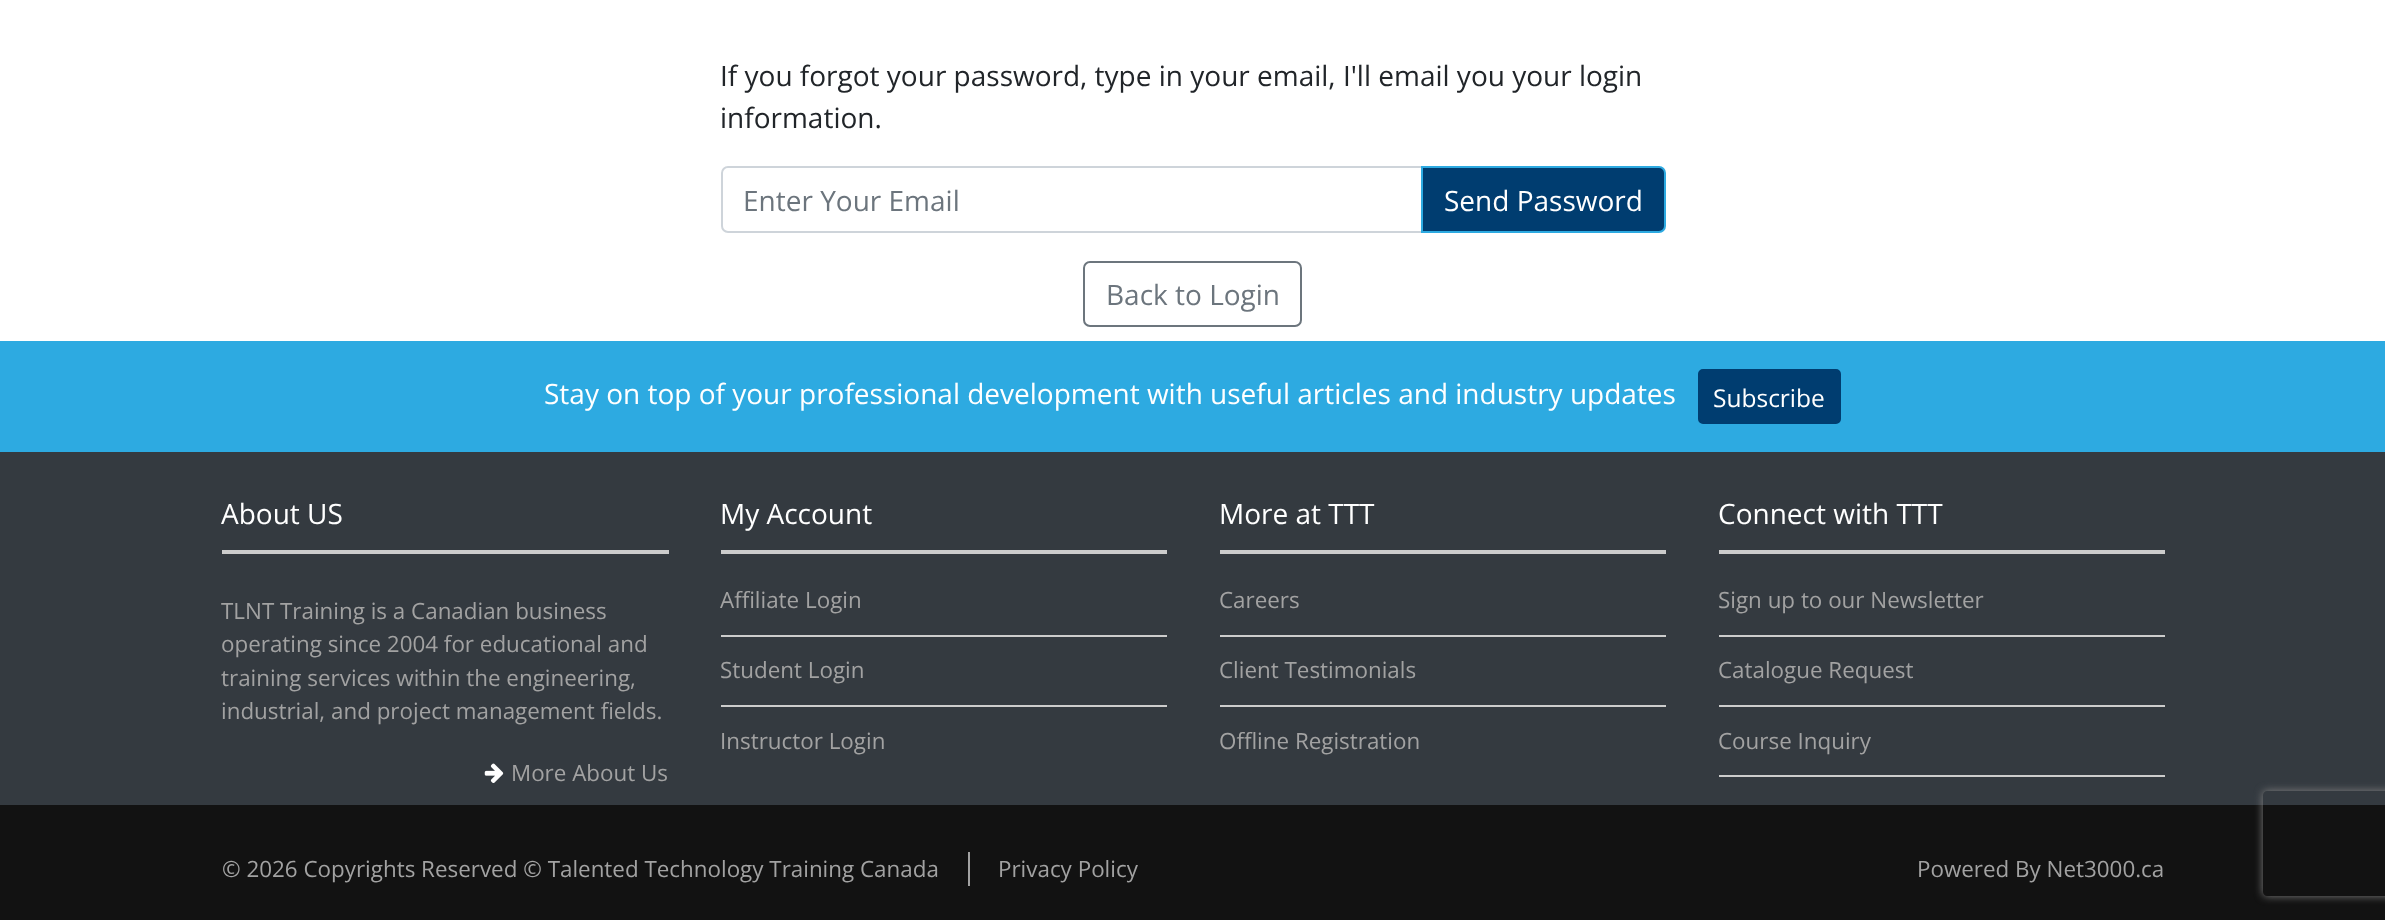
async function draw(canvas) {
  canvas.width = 2385
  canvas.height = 920
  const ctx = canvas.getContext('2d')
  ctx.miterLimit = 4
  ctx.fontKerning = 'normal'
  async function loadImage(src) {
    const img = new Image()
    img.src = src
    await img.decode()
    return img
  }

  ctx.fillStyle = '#fff'
  ctx.fillRect(0, 0, 2385, 920)
  ctx.font = '28px Open Sans'
  ctx.fillStyle = '#212529'
  ctx.fillText('If you forgot your password, type in your email, I\'ll email you your login', 720, 86)
  ctx.fillText('information.', 720, 128)
  ctx.beginPath()
  ctx.roundRect(722, 167, 700, 65, [6, 0, 0, 6])
  ctx.strokeStyle = '#ced4da'
  ctx.lineWidth = 2
  ctx.stroke()
  ctx.fillStyle = '#6c757d'
  ctx.fillText('Enter Your Email', 743, 211)
  ctx.fillStyle = '#003d70'
  ctx.beginPath()
  ctx.roundRect(1422, 167, 243, 65, [0, 6, 6, 0])
  ctx.fill()
  ctx.strokeStyle = '#2daae1'
  ctx.stroke()
  ctx.fillStyle = '#fff'
  ctx.fillText('Send Password', 1444, 211)
  ctx.beginPath()
  ctx.roundRect(1084, 262, 217, 64, 6)
  ctx.strokeStyle = '#6c757d'
  ctx.stroke()
  ctx.fillStyle = '#6c757d'
  ctx.fillText('Back to Login', 1106, 305)
  ctx.fillStyle = '#2daae1'
  ctx.fillRect(0, 341, 2385, 111)
  ctx.fillStyle = '#fff'
  ctx.fillText('Stay on top of your professional development with useful articles and industry updates', 544, 404)
  ctx.fillStyle = '#003d70'
  ctx.beginPath()
  ctx.roundRect(1699, 370, 141, 53, 4)
  ctx.fill()
  ctx.strokeStyle = '#003d70'
  ctx.stroke()
  ctx.font = '24.5px Open Sans'
  ctx.fillStyle = '#fff'
  ctx.fillText('Subscribe', 1713, 407)
  ctx.fillStyle = '#343a40'
  ctx.fillRect(0, 452, 2385, 353)
  ctx.fillStyle = '#ccc'
  ctx.fillRect(222, 550, 447, 4)
  ctx.font = '28px Open Sans'
  ctx.fillStyle = '#fff'
  ctx.fillText('About US', 221, 524)
  ctx.font = '22.4px Open Sans'
  ctx.fillStyle = '#a2a2a2'
  ctx.fillText('TLNT Training is a Canadian business', 221, 619)
  ctx.fillText('operating since 2004 for educational and', 221, 652)
  ctx.fillText('training services within the engineering,', 221, 686)
  ctx.fillText('industrial, and project management fields.', 221, 719)
  ctx.drawImage(await loadImage('image0.png'), 484, 763, 20, 20)
  ctx.fillText('More About Us', 511, 781)
  ctx.fillStyle = '#ccc'
  ctx.fillRect(721, 550, 446, 4)
  ctx.font = '28px Open Sans'
  ctx.fillStyle = '#fff'
  ctx.fillText('My Account', 720, 524)
  ctx.fillStyle = '#ccc'
  ctx.fillRect(721, 635, 446, 2)
  ctx.font = '22.4px Open Sans'
  ctx.fillStyle = '#a2a2a2'
  ctx.fillText('Affiliate Login', 720, 608)
  ctx.fillStyle = '#ccc'
  ctx.fillRect(721, 705, 446, 2)
  ctx.fillStyle = '#a2a2a2'
  ctx.fillText('Student Login', 720, 678)
  ctx.fillText('Instructor Login', 720, 749)
  ctx.fillStyle = '#ccc'
  ctx.fillRect(1220, 550, 446, 4)
  ctx.font = '28px Open Sans'
  ctx.fillStyle = '#fff'
  ctx.fillText('More at TTT', 1219, 524)
  ctx.fillStyle = '#ccc'
  ctx.fillRect(1220, 635, 446, 2)
  ctx.font = '22.4px Open Sans'
  ctx.fillStyle = '#a2a2a2'
  ctx.fillText('Careers', 1219, 608)
  ctx.fillStyle = '#ccc'
  ctx.fillRect(1220, 705, 446, 2)
  ctx.fillStyle = '#a2a2a2'
  ctx.fillText('Client Testimonials', 1219, 678)
  ctx.fillText('Offline Registration', 1219, 749)
  ctx.fillStyle = '#ccc'
  ctx.fillRect(1719, 550, 446, 4)
  ctx.font = '28px Open Sans'
  ctx.fillStyle = '#fff'
  ctx.fillText('Connect with TTT', 1718, 524)
  ctx.fillStyle = '#ccc'
  ctx.fillRect(1719, 635, 446, 2)
  ctx.font = '22.4px Open Sans'
  ctx.fillStyle = '#a2a2a2'
  ctx.fillText('Sign up to our Newsletter', 1718, 608)
  ctx.fillStyle = '#ccc'
  ctx.fillRect(1719, 705, 446, 2)
  ctx.fillStyle = '#a2a2a2'
  ctx.fillText('Catalogue Request', 1718, 678)
  ctx.fillStyle = '#ccc'
  ctx.fillRect(1719, 775, 446, 2)
  ctx.fillStyle = '#a2a2a2'
  ctx.fillText('Course Inquiry', 1718, 749)
  ctx.fillStyle = '#121212'
  ctx.fillRect(0, 805, 2385, 115)
  ctx.fillStyle = '#a2a2a2'
  ctx.fillText('© 2026 Copyrights Reserved © Talented Technology Training Canada', 222, 877)
  ctx.fillRect(968, 852, 2, 34)
  ctx.fillText('Privacy Policy', 998, 877)
  ctx.fillText('Powered By Net3000.ca', 1917, 877)
  ctx.save()
  ctx.beginPath()
  ctx.moveTo(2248, 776)
  ctx.lineTo(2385, 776)
  ctx.lineTo(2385, 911)
  ctx.lineTo(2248, 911)
  ctx.closePath()
  ctx.moveTo(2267, 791)
  ctx.lineTo(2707, 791)
  ctx.bezierCurveTo(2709, 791, 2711, 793, 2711, 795)
  ctx.lineTo(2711, 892)
  ctx.bezierCurveTo(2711, 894, 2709, 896, 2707, 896)
  ctx.lineTo(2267, 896)
  ctx.bezierCurveTo(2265, 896, 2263, 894, 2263, 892)
  ctx.lineTo(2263, 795)
  ctx.bezierCurveTo(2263, 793, 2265, 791, 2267, 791)
  ctx.closePath()
  ctx.clip('evenodd')
  ctx.fillStyle = '#808080'
  ctx.filter = 'blur(4.5px)'
  ctx.beginPath()
  ctx.roundRect(2263, 791, 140, 105, 4)
  ctx.fill()
  ctx.filter = 'none'
  ctx.restore()
}

draw(document.querySelector('canvas'))
